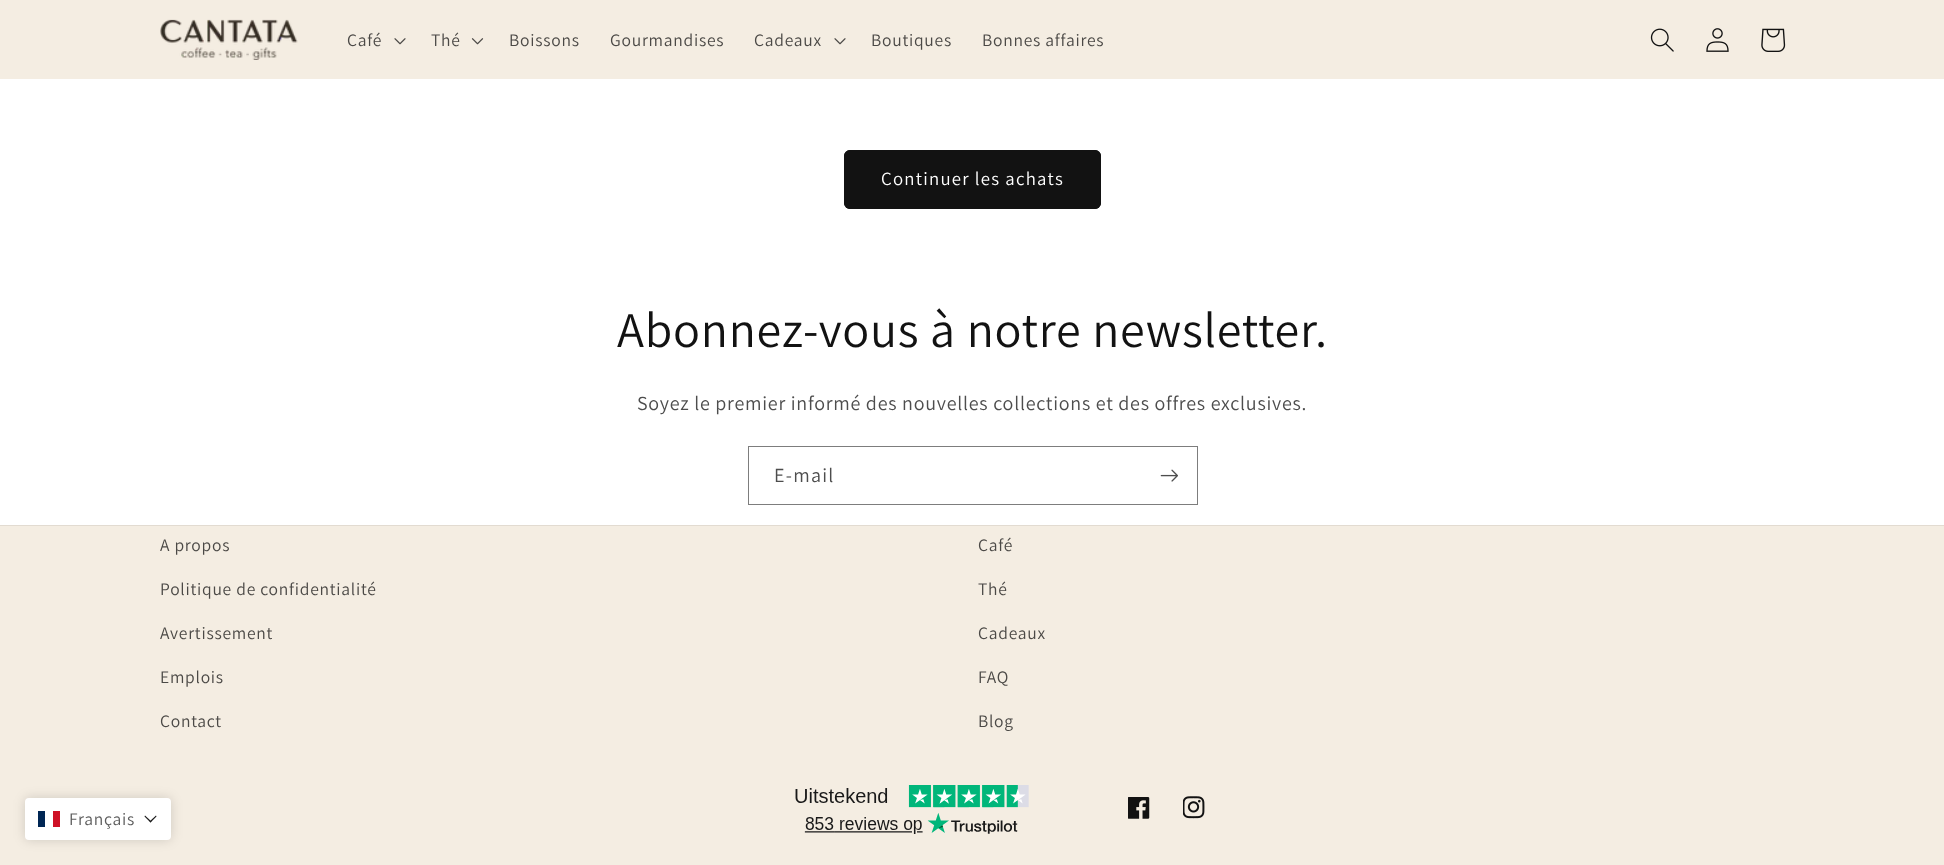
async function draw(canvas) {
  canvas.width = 1944
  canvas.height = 865
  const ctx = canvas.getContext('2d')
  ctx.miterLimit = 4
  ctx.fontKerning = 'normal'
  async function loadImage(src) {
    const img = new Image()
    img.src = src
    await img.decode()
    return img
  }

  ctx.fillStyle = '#fff'
  ctx.fillRect(0, 0, 1944, 865)
  ctx.fillStyle = '#f4ede2'
  ctx.fillRect(0, 0, 1944, 79)
  ctx.drawImage(await loadImage('image0.png'), 160, 19, 138, 41)
  ctx.letterSpacing = '0.75px'
  ctx.font = '17.5px Assistant'
  ctx.fillStyle = '#4b4946'
  ctx.fillText('Café', 347, 46)
  ctx.drawImage(await loadImage('image1.png'), 394, 38, 12, 7)
  ctx.fillText('Thé', 431, 46)
  ctx.drawImage(await loadImage('image2.png'), 471, 38, 13, 7)
  ctx.fillText('Boissons', 509, 46)
  ctx.fillText('Gourmandises', 610, 46)
  ctx.fillText('Cadeaux', 754, 46)
  ctx.drawImage(await loadImage('image1.png'), 834, 38, 12, 7)
  ctx.fillText('Boutiques', 871, 46)
  ctx.fillText('Bonnes affaires', 982, 46)
  ctx.drawImage(await loadImage('image3.png'), 1650, 28, 24, 24)
  ctx.drawImage(await loadImage('image4.png'), 1706, 28, 23, 24)
  ctx.drawImage(await loadImage('image5.png'), 1761, 28, 25, 24)
  ctx.fillStyle = '#121212'
  ctx.beginPath()
  ctx.roundRect(844, 150, 257, 59, 6)
  ctx.fill()
  ctx.beginPath()
  ctx.roundRect(844.5, 150.5, 256, 58, 5.5)
  ctx.strokeStyle = '#121212'
  ctx.stroke()
  ctx.letterSpacing = '1.25px'
  ctx.font = '18.75px Assistant'
  ctx.fillStyle = '#fff'
  ctx.fillText('Continuer les achats', 881, 185)
  ctx.letterSpacing = '0.75px'
  ctx.font = '50px Assistant'
  ctx.fillStyle = '#121212'
  ctx.fillText('Abonnez-vous à notre newsletter.', 617, 347)
  ctx.font = '20px Assistant'
  ctx.fillStyle = '#4d4d4d'
  ctx.fillText('Soyez le premier informé des nouvelles collections et des offres exclusives.', 637, 410)
  ctx.strokeStyle = '#7d7d7d'
  ctx.strokeRect(748.5, 446.5, 449, 58)
  ctx.letterSpacing = '1.25px'
  ctx.fillText('E-mail', 774, 482)
  ctx.drawImage(await loadImage('image6.png'), 1160, 469, 18, 13)
  ctx.fillStyle = '#f4ede2'
  ctx.fillRect(0, 526, 1944, 339)
  ctx.fillStyle = '#e2dbd1'
  ctx.fillRect(0, 525, 1944, 1)
  ctx.letterSpacing = '0.75px'
  ctx.font = '17.5px Assistant'
  ctx.fillStyle = '#4b4946'
  ctx.fillText('A propos', 160, 551)
  ctx.fillText('Politique de confidentialité', 160, 595)
  ctx.fillText('Avertissement', 160, 639)
  ctx.fillText('Emplois', 160, 683)
  ctx.fillText('Contact', 160, 727)
  ctx.fillText('Café', 978, 551)
  ctx.fillText('Thé', 978, 595)
  ctx.fillText('Cadeaux', 978, 639)
  ctx.fillText('FAQ', 978, 683)
  ctx.fillText('Blog', 978, 727)
  ctx.drawImage(await loadImage('image7.png'), 795, 785, 234, 49)
  ctx.drawImage(await loadImage('image8.png'), 1128, 797, 22, 22)
  ctx.drawImage(await loadImage('image9.png'), 1183, 796, 22, 23)
  ctx.fillStyle = '#00000026'
  ctx.filter = 'blur(6px)'
  ctx.beginPath()
  ctx.roundRect(25, 798, 146, 42, 4)
  ctx.fill()
  ctx.filter = 'none'
  ctx.fillStyle = '#fff'
  ctx.beginPath()
  ctx.roundRect(25, 798, 146, 42, 4)
  ctx.fill()
  ctx.fillStyle = '#002654'
  ctx.fillRect(38, 811, 7, 16)
  ctx.fillStyle = '#ce1126'
  ctx.fillRect(53, 811, 7, 16)
  ctx.fillStyle = '#5c5c5c'
  ctx.fillText('Français', 69, 825)
  ctx.fillStyle = '#1a1a1a'
  ctx.beginPath()
  ctx.moveTo(156, 815.5)
  ctx.lineTo(156.5, 816.5)
  ctx.lineTo(150.5, 822.5)
  ctx.lineTo(149.5, 821.5)
  ctx.closePath()
  ctx.fill()
  ctx.beginPath()
  ctx.moveTo(145, 815.5)
  ctx.lineTo(151.5, 821.5)
  ctx.lineTo(150.5, 822.5)
  ctx.lineTo(144.5, 816.5)
  ctx.closePath()
  ctx.fill()
}

draw(document.querySelector('canvas'))
